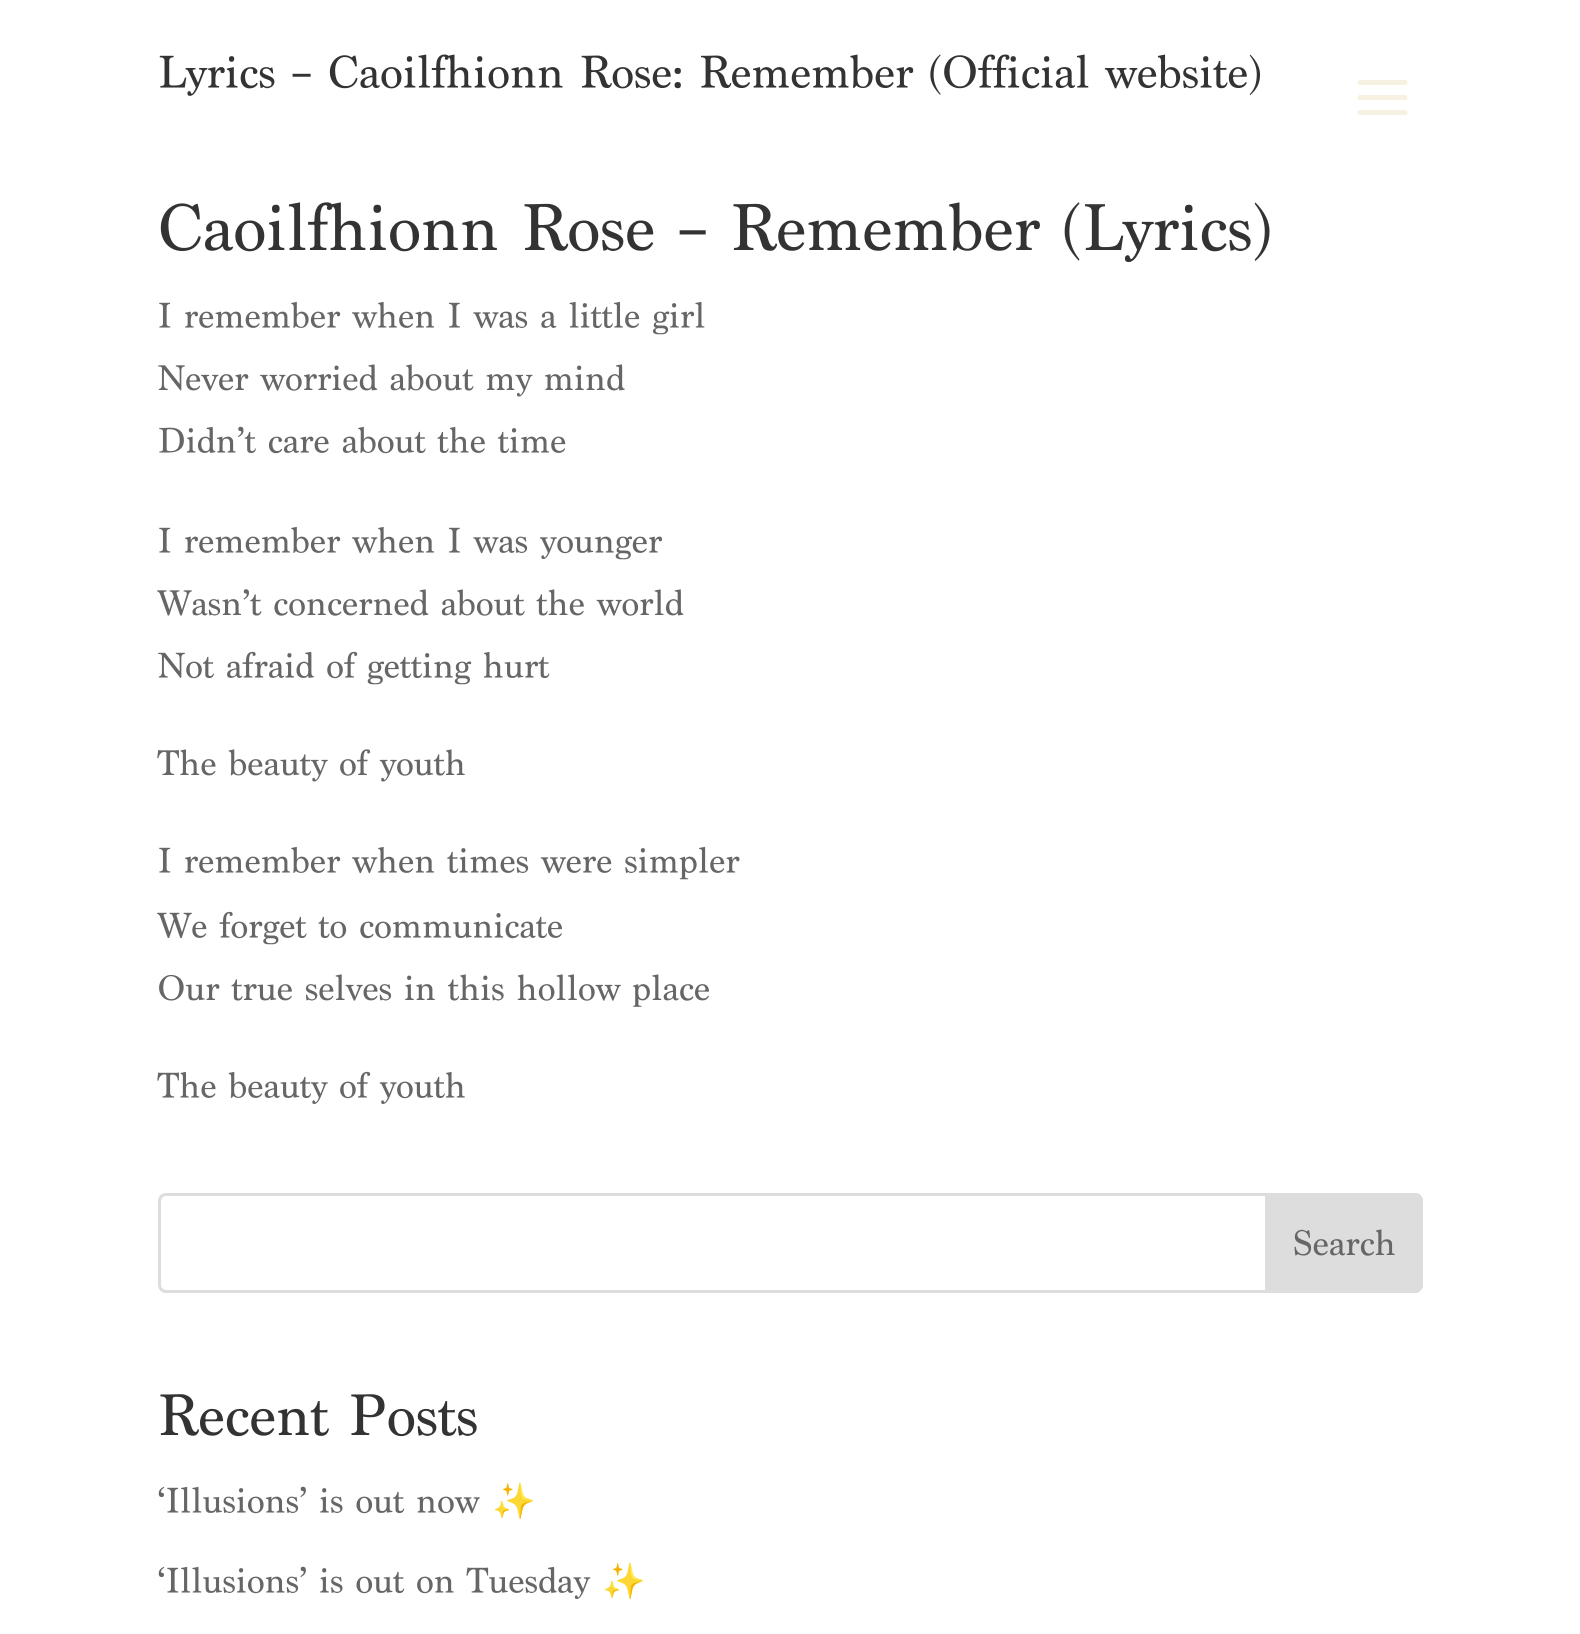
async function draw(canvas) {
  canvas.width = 1580
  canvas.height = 1634
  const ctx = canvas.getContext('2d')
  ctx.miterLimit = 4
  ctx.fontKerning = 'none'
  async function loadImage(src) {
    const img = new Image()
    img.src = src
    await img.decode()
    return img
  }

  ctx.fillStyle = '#fff'
  ctx.fillRect(0, 0, 1580, 1634)
  ctx.drawImage(await loadImage('image0.png'), 1357, 80, 51, 35)
  ctx.drawImage(await loadImage('image1.png'), 159, 54, 1102, 42)
  ctx.drawImage(await loadImage('image2.png'), 160, 202, 1110, 61)
  ctx.drawImage(await loadImage('image3.png'), 159, 301, 546, 34)
  ctx.drawImage(await loadImage('image4.png'), 158, 364, 467, 33)
  ctx.drawImage(await loadImage('image5.png'), 159, 426, 407, 28)
  ctx.drawImage(await loadImage('image6.png'), 159, 526, 503, 34)
  ctx.drawImage(await loadImage('image7.png'), 157, 589, 527, 27)
  ctx.drawImage(await loadImage('image8.png'), 158, 651, 392, 34)
  ctx.drawImage(await loadImage('image9.png'), 157, 749, 308, 33)
  ctx.drawImage(await loadImage('image10.png'), 159, 846, 581, 34)
  ctx.drawImage(await loadImage('image11.png'), 157, 911, 405, 34)
  ctx.drawImage(await loadImage('image12.png'), 159, 974, 550, 33)
  ctx.drawImage(await loadImage('image13.png'), 157, 1071, 308, 33)
  ctx.beginPath()
  ctx.roundRect(159.5, 1194.5, 1262, 97, 6.5)
  ctx.strokeStyle = '#ddd'
  ctx.lineWidth = 3
  ctx.stroke()
  ctx.fillStyle = '#ddd'
  ctx.beginPath()
  ctx.roundRect(1266.5, 1194.5, 155, 97, [0, 6.5, 6.5, 0])
  ctx.fill()
  ctx.stroke()
  ctx.drawImage(await loadImage('image14.png'), 1294, 1229, 101, 27)
  ctx.drawImage(await loadImage('image15.png'), 160, 1394, 317, 43)
  ctx.drawImage(await loadImage('image16.png'), 158, 1486, 322, 28)
  ctx.font = '35px Noto Color Emoji'
  ctx.fillStyle = '#666'
  ctx.fillText('✨', 492, 1513)
  ctx.drawImage(await loadImage('image17.png'), 158, 1566, 433, 33)
  ctx.fillText('✨', 602, 1593)
}

draw(document.querySelector('canvas'))
